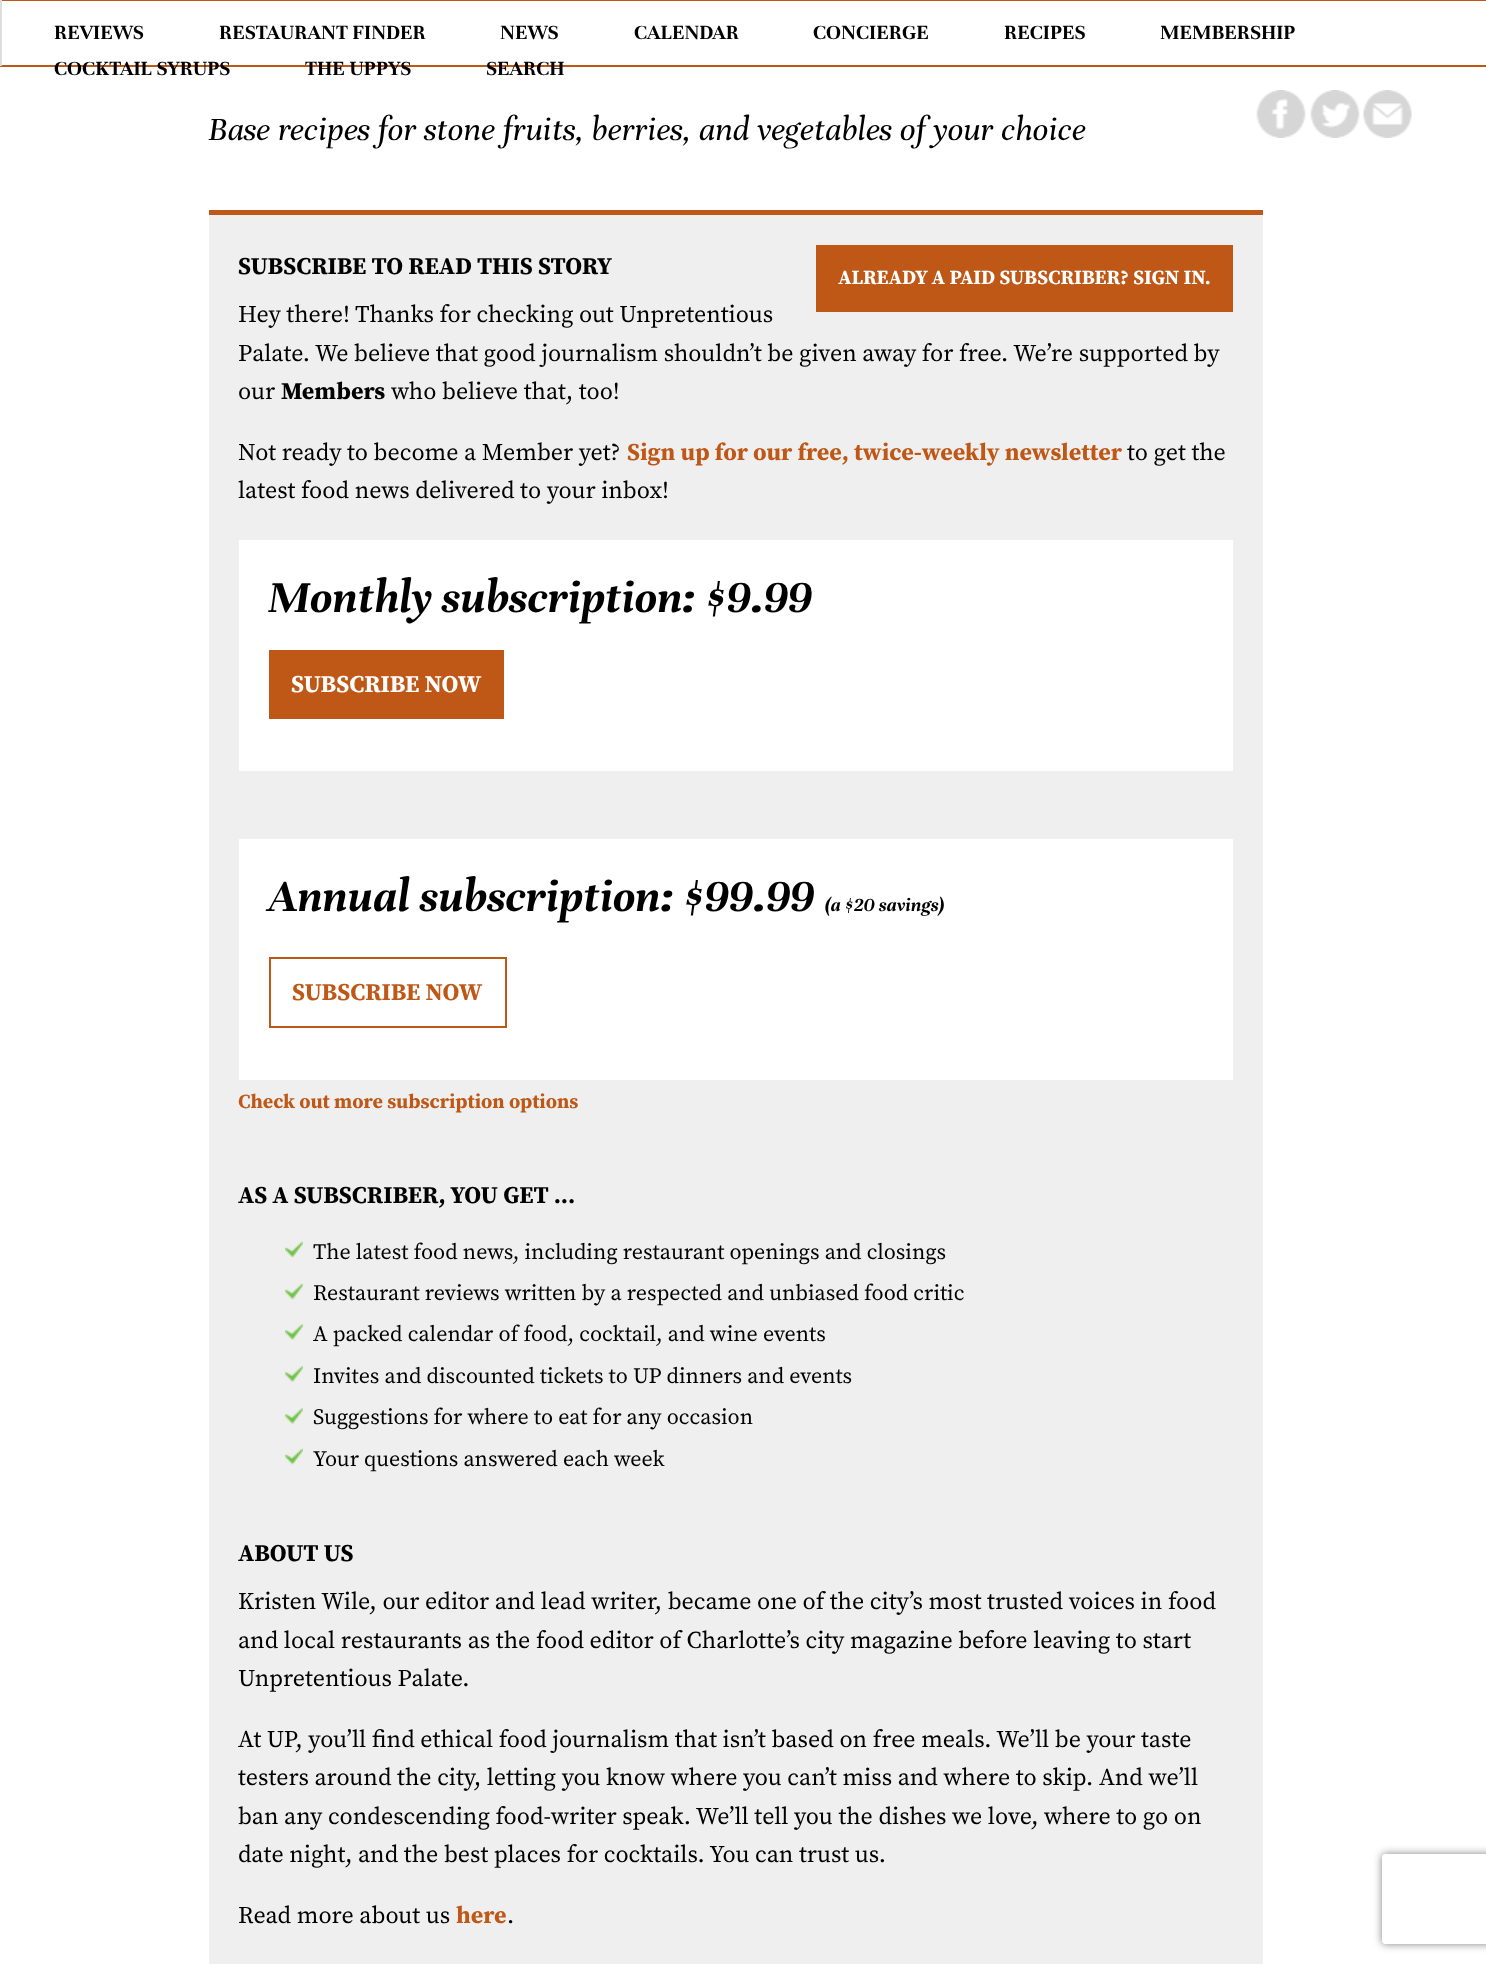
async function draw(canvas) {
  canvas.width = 1486
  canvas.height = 1964
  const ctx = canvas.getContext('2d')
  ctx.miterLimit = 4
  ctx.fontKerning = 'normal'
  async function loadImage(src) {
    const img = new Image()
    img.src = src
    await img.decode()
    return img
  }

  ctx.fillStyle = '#fff'
  ctx.fillRect(0, 0, 1486, 1964)
  ctx.fillStyle = '#bf5817'
  ctx.fillRect(0, 0, 1486, 1)
  ctx.fillRect(0, 65, 1486, 2)
  ctx.fillStyle = '#ddd'
  ctx.fillRect(0, 0, 2, 66)
  ctx.font = 'bold 22px Unna'
  ctx.fillStyle = '#000'
  ctx.fillText('REVIEWS', 54, 39)
  ctx.fillText('RESTAURANT FINDER', 219, 39)
  ctx.fillText('NEWS', 500, 39)
  ctx.fillText('CALENDAR', 634, 39)
  ctx.fillText('CONCIERGE', 813, 39)
  ctx.fillText('RECIPES', 1004, 39)
  ctx.fillText('MEMBERSHIP', 1160, 39)
  ctx.fillText('COCKTAIL SYRUPS', 54, 75)
  ctx.fillText('THE UPPYS', 305, 75)
  ctx.fillText('SEARCH', 486, 75)
  ctx.font = 'italic 35px Unna'
  ctx.fillText('Base recipes for stone fruits, berries, and vegetables of your choice', 208, 140)
  ctx.fillStyle = '#efefef'
  ctx.fillRect(209, 215, 1054, 1749)
  ctx.fillStyle = '#bf5817'
  ctx.fillRect(209, 210, 1054, 5)
  ctx.font = 'bold 24px Source Serif Pro'
  ctx.fillStyle = '#000'
  ctx.fillText('SUBSCRIBE TO READ THIS STORY', 238, 274)
  ctx.fillStyle = '#bf5817'
  ctx.fillRect(816, 245, 417, 67)
  ctx.font = 'bold 20px Source Serif Pro'
  ctx.fillStyle = '#fff'
  ctx.fillText('ALREADY A PAID SUBSCRIBER? SIGN IN.', 838, 284)
  ctx.font = '24px Source Serif Pro'
  ctx.fillStyle = '#000'
  ctx.fillText('Hey there! Thanks for checking out Unpretentious', 238, 322)
  ctx.fillText('Palate. We believe that good journalism shouldn’t be given away for free. We’re supported by', 238, 361)
  ctx.fillText('our', 238, 399)
  ctx.font = 'bold 24px Source Serif Pro'
  ctx.fillText('Members', 281, 399)
  ctx.font = '24px Source Serif Pro'
  ctx.fillText('who believe that, too!', 391, 399)
  ctx.fillText('Not ready to become a Member yet?', 238, 460)
  ctx.font = 'bold 24px Source Serif Pro'
  ctx.fillStyle = '#bf5817'
  ctx.fillText('Sign up for our free, twice-weekly newsletter', 627, 460)
  ctx.font = '24px Source Serif Pro'
  ctx.fillStyle = '#000'
  ctx.fillText('to get the', 1127, 460)
  ctx.fillText('latest food news delivered to your inbox!', 238, 498)
  ctx.fillStyle = '#fff'
  ctx.fillRect(239, 540, 994, 231)
  ctx.font = 'italic bold 48px Unna'
  ctx.fillStyle = '#000'
  ctx.fillText('Monthly subscription: $9.99', 268, 612)
  ctx.fillStyle = '#bf5817'
  ctx.fillRect(269, 650, 235, 69)
  ctx.font = 'bold 24px Source Serif Pro'
  ctx.fillStyle = '#fff'
  ctx.fillText('SUBSCRIBE NOW', 291, 692)
  ctx.fillRect(239, 839, 994, 241)
  ctx.font = 'italic bold 48px Unna'
  ctx.fillStyle = '#000'
  ctx.fillText('Annual subscription: $99.99', 268, 911)
  ctx.font = 'italic bold 20px Unna'
  ctx.fillText('(a $20 savings)', 825, 911)
  ctx.strokeStyle = '#bf5817'
  ctx.lineWidth = 2
  ctx.strokeRect(270, 958, 236, 69)
  ctx.font = 'bold 24px Source Serif Pro'
  ctx.fillStyle = '#bf5817'
  ctx.fillText('SUBSCRIBE NOW', 292, 1000)
  ctx.font = 'bold 20px Source Serif Pro'
  ctx.fillText('Check out more subscription options', 238, 1108)
  ctx.font = 'bold 24px Source Serif Pro'
  ctx.fillStyle = '#000'
  ctx.fillText('AS A SUBSCRIBER, YOU GET ...', 238, 1203)
  ctx.drawImage(await loadImage('image0.png'), 285, 1241, 18, 17)
  ctx.font = '22px Source Serif Pro'
  ctx.fillText('The latest food news, including restaurant openings and closings', 313, 1259)
  ctx.drawImage(await loadImage('image0.png'), 285, 1283, 18, 17)
  ctx.fillText('Restaurant reviews written by a respected and unbiased food critic', 313, 1300)
  ctx.drawImage(await loadImage('image1.png'), 285, 1324, 18, 16)
  ctx.fillText('A packed calendar of food, cocktail, and wine events', 313, 1341)
  ctx.drawImage(await loadImage('image1.png'), 285, 1366, 18, 16)
  ctx.fillText('Invites and discounted tickets to UP dinners and events', 313, 1383)
  ctx.drawImage(await loadImage('image1.png'), 285, 1408, 18, 16)
  ctx.fillText('Suggestions for where to eat for any occasion', 313, 1424)
  ctx.drawImage(await loadImage('image0.png'), 285, 1448, 18, 17)
  ctx.fillText('Your questions answered each week', 313, 1466)
  ctx.font = 'bold 24px Source Serif Pro'
  ctx.fillText('ABOUT US', 238, 1561)
  ctx.font = '24px Source Serif Pro'
  ctx.fillText('Kristen Wile, our editor and lead writer, became one of the city’s most trusted voices in food', 238, 1609)
  ctx.fillText('and local restaurants as the food editor of Charlotte’s city magazine before leaving to start', 238, 1648)
  ctx.fillText('Unpretentious Palate.', 238, 1686)
  ctx.fillText('At UP, you’ll find ethical food journalism that isn’t based on free meals. We’ll be your taste', 238, 1747)
  ctx.fillText('testers around the city, letting you know where you can’t miss and where to skip. And we’ll', 238, 1785)
  ctx.fillText('ban any condescending food-writer speak. We’ll tell you the dishes we love, where to go on', 238, 1824)
  ctx.fillText('date night, and the best places for cocktails. You can trust us.', 238, 1862)
  ctx.fillText('Read more about us', 238, 1923)
  ctx.font = 'bold 24px Source Serif Pro'
  ctx.fillStyle = '#bf5817'
  ctx.fillText('here', 456, 1923)
  ctx.font = '24px Source Serif Pro'
  ctx.fillStyle = '#000'
  ctx.fillText('.', 507, 1923)
  ctx.drawImage(await loadImage('image2.png'), 1256, 90, 50, 48)
  ctx.drawImage(await loadImage('image3.png'), 1310, 90, 50, 48)
  ctx.drawImage(await loadImage('image4.png'), 1363, 90, 49, 48)
  ctx.save()
  ctx.beginPath()
  ctx.moveTo(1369, 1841)
  ctx.lineTo(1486, 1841)
  ctx.lineTo(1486, 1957)
  ctx.lineTo(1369, 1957)
  ctx.closePath()
  ctx.moveTo(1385, 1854)
  ctx.lineTo(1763, 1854)
  ctx.bezierCurveTo(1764.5, 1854, 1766, 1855.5, 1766, 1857)
  ctx.lineTo(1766, 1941)
  ctx.bezierCurveTo(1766, 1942.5, 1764.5, 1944, 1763, 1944)
  ctx.lineTo(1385, 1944)
  ctx.bezierCurveTo(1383.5, 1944, 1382, 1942.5, 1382, 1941)
  ctx.lineTo(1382, 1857)
  ctx.bezierCurveTo(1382, 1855.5, 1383.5, 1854, 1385, 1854)
  ctx.closePath()
  ctx.clip('evenodd')
  ctx.fillStyle = '#808080'
  ctx.filter = 'blur(4px)'
  ctx.beginPath()
  ctx.roundRect(1382, 1854, 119, 90, 3)
  ctx.fill()
  ctx.filter = 'none'
  ctx.restore()
}

draw(document.querySelector('canvas'))
